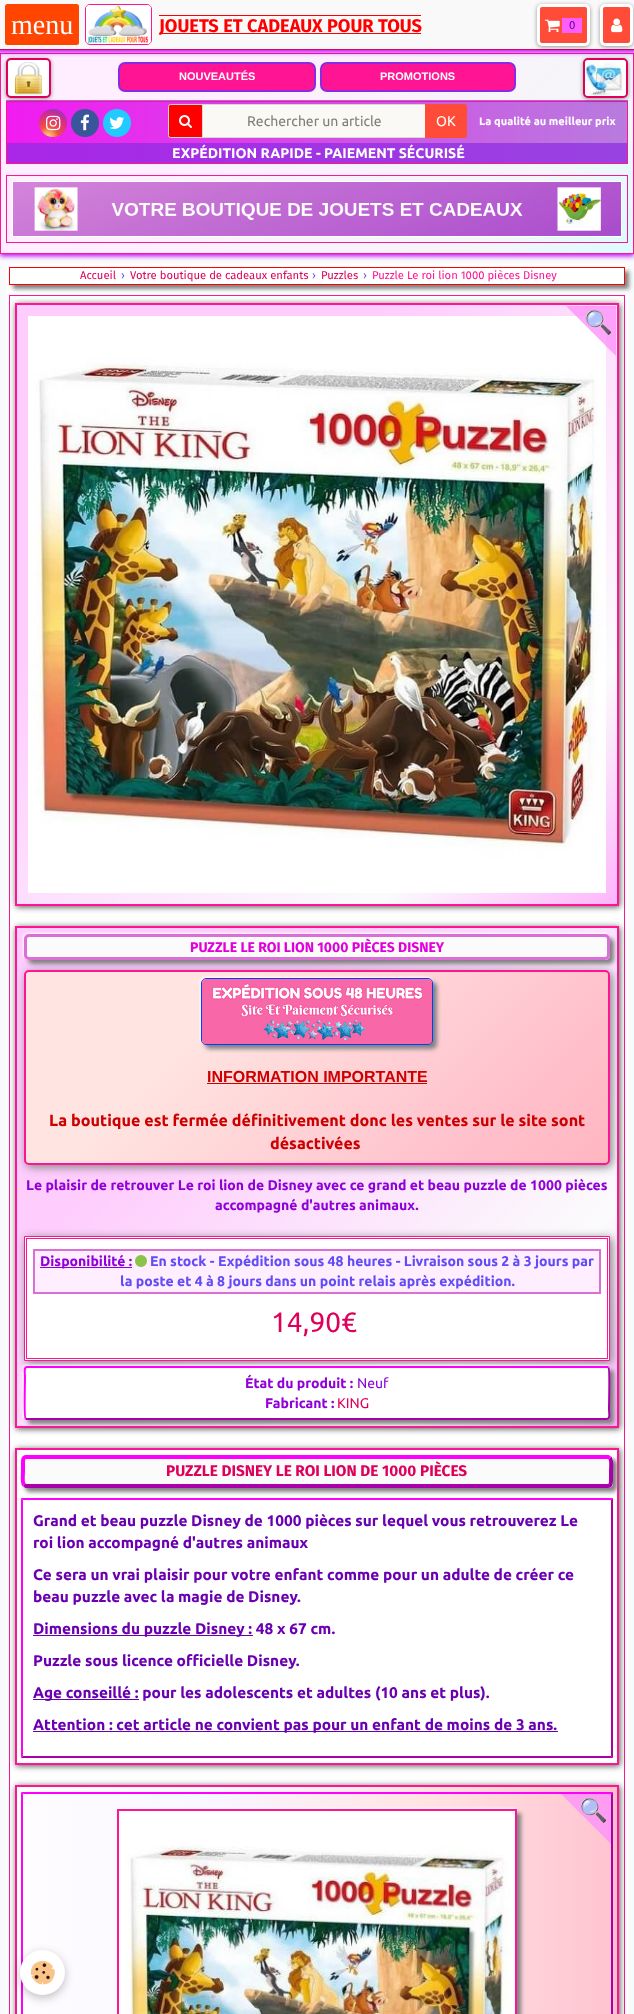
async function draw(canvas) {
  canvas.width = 634
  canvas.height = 2014
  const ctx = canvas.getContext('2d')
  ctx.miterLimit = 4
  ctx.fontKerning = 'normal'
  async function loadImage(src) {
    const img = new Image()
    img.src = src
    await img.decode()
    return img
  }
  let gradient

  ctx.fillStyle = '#f9fafc'
  ctx.fillRect(0, 0, 634, 2014)
  ctx.fillStyle = '#fff'
  ctx.fillRect(6, 264, 622, 1750)
  ctx.fillStyle = '#bf00f4'
  ctx.filter = 'blur(2.5px)'
  ctx.beginPath()
  ctx.rect(0, 55, 634, 201)
  ctx.fill()
  ctx.filter = 'none'
  gradient = ctx.createLinearGradient(109, -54, 525, 361)
  gradient.addColorStop(0.3, '#feeeff')
  gradient.addColorStop(0.8, '#f4f6f8')
  gradient.addColorStop(1, '#dafcfd')
  ctx.fillStyle = gradient
  ctx.fillRect(1, 54, 632, 199)
  gradient = ctx.createLinearGradient(109, -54, 525, 361)
  gradient.addColorStop(0.3, '#ad66eb')
  gradient.addColorStop(0.8, '#aa68e9')
  gradient.addColorStop(1, '#a26aea')
  ctx.fillStyle = gradient
  ctx.fillRect(6, 100, 622, 1)
  ctx.strokeStyle = '#ff1493'
  ctx.strokeRect(0.5, 53.5, 633, 200)
  gradient = ctx.createLinearGradient(7, 133, 627, 132)
  gradient.addColorStop(0, '#f11bf1')
  gradient.addColorStop(1, '#b87bde')
  ctx.fillStyle = gradient
  ctx.fillRect(7, 102, 620, 41)
  gradient = ctx.createLinearGradient(7, 133, 627, 132)
  gradient.addColorStop(0, '#a926e7')
  gradient.addColorStop(1, '#9843e1')
  ctx.fillStyle = gradient
  ctx.fillRect(7, 143, 620, 20)
  ctx.strokeRect(6.5, 101.5, 621, 62)
  ctx.fillStyle = '#00000066'
  ctx.filter = 'blur(2px)'
  ctx.beginPath()
  ctx.roundRect(6, 59, 45, 40, 5)
  ctx.fill()
  ctx.filter = 'none'
  ctx.fillStyle = '#fff'
  ctx.beginPath()
  ctx.roundRect(7, 59, 43, 38, 4)
  ctx.fill()
  ctx.strokeStyle = '#de005a'
  ctx.lineWidth = 2
  ctx.stroke()
  ctx.fillStyle = '#00000066'
  ctx.filter = 'blur(2px)'
  ctx.beginPath()
  ctx.roundRect(583, 59, 45, 40, 5)
  ctx.fill()
  ctx.filter = 'none'
  ctx.beginPath()
  ctx.roundRect(584, 59, 43, 38, 4)
  ctx.stroke()
  ctx.drawImage(await loadImage('image4.png'), 585, 60, 41, 36)
  ctx.fillStyle = '#bf00f4'
  ctx.filter = 'blur(2.5px)'
  ctx.beginPath()
  ctx.rect(-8, 2, 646, 50)
  ctx.fill()
  ctx.filter = 'none'
  ctx.fillStyle = '#f9f9f9'
  ctx.fillRect(0, 0, 634, 49)
  ctx.fillStyle = '#de0059'
  ctx.fillRect(0, 49, 634, 1)
  ctx.fillStyle = '#ff4500'
  ctx.beginPath()
  ctx.roundRect(5, 4, 74, 41, 2.5)
  ctx.fill()
  ctx.font = '28px Liberation Serif'
  ctx.fillStyle = '#fff'
  ctx.fillText('menu', 11, 34)
  ctx.beginPath()
  ctx.roundRect(85.5, 4.5, 66, 40, 4.5)
  ctx.strokeStyle = '#ff1493'
  ctx.lineWidth = 1
  ctx.stroke()
  ctx.drawImage(await loadImage('image0.png'), 86, 5, 65, 39)
  ctx.fillStyle = '#f00'
  ctx.fillRect(159, 33, 262, 1)
  ctx.font = 'bold 18.25px Fira Sans'
  ctx.fillText('JOUETS ET CADEAUX POUR TOUS', 159, 32)
  ctx.fillRect(159, 15, 262, 1)
  ctx.fillStyle = '#00000066'
  ctx.filter = 'blur(2px)'
  ctx.beginPath()
  ctx.roundRect(537, 5, 53, 42, 5)
  ctx.fill()
  ctx.filter = 'none'
  ctx.fillStyle = '#ff4c39'
  ctx.beginPath()
  ctx.roundRect(538.5, 5.5, 50, 39, 3.5)
  ctx.fill()
  ctx.strokeStyle = '#fff'
  ctx.lineWidth = 3
  ctx.stroke()
  ctx.drawImage(await loadImage('image1.png'), 545, 19, 15, 14)
  ctx.fillStyle = '#fe5dfc'
  ctx.fillRect(562, 18, 20, 15)
  ctx.font = '11.25px Ubuntu'
  ctx.fillStyle = '#6a00b1'
  ctx.fillText('0', 569, 29)
  ctx.fillStyle = '#00000066'
  ctx.filter = 'blur(2px)'
  ctx.beginPath()
  ctx.roundRect(600, 5, 33, 42, 5)
  ctx.fill()
  ctx.filter = 'none'
  ctx.fillStyle = '#ff4c39'
  ctx.beginPath()
  ctx.roundRect(601.5, 5.5, 30, 39, 3.5)
  ctx.fill()
  ctx.stroke()
  ctx.drawImage(await loadImage('image2.png'), 611, 18, 12, 15)
  ctx.drawImage(await loadImage('image3.png'), 14, 61, 29, 34)
  ctx.fillStyle = '#ff1493'
  ctx.beginPath()
  ctx.roundRect(119, 63, 196, 28, 6)
  ctx.fill()
  ctx.strokeStyle = '#8a2be2'
  ctx.lineWidth = 2
  ctx.stroke()
  ctx.font = 'bold 11px Liberation Sans'
  ctx.fillStyle = '#fff'
  ctx.fillText('NOUVEAUTÉS', 179, 80)
  ctx.fillStyle = '#ff1493'
  ctx.beginPath()
  ctx.roundRect(321, 63, 194, 28, 6)
  ctx.fill()
  ctx.stroke()
  ctx.fillStyle = '#fff'
  ctx.fillText('PROMOTIONS', 380, 80)
  gradient = ctx.createRadialGradient(48, 137, 0, 48, 137, 34)
  gradient.addColorStop(0.04, '#fed373')
  gradient.addColorStop(0.3, '#f15245')
  gradient.addColorStop(0.62, '#d92e7f')
  gradient.addColorStop(0.85, '#9b36b7')
  gradient.addColorStop(1, '#515ecf')
  ctx.fillStyle = gradient
  ctx.beginPath()
  ctx.arc(53, 123, 14, 0, 2 * Math.PI)
  ctx.fill()
  ctx.drawImage(await loadImage('image5.png'), 46, 115, 15, 16)
  ctx.fillStyle = '#385699'
  ctx.beginPath()
  ctx.arc(85, 123, 14, 0, 2 * Math.PI)
  ctx.fill()
  ctx.drawImage(await loadImage('image6.png'), 80, 114, 9, 17)
  ctx.fillStyle = '#22cbff'
  ctx.beginPath()
  ctx.arc(117, 123, 14, 0, 2 * Math.PI)
  ctx.fill()
  ctx.drawImage(await loadImage('image7.png'), 109, 117, 15, 12)
  ctx.fillStyle = '#f00'
  ctx.beginPath()
  ctx.roundRect(168.5, 104.5, 34, 33, [2, 0, 0, 2])
  ctx.fill()
  ctx.strokeStyle = '#dcd7cf'
  ctx.lineWidth = 1
  ctx.stroke()
  ctx.drawImage(await loadImage('image8.png'), 179, 115, 13, 13)
  ctx.fillStyle = '#fbf9f6'
  ctx.beginPath()
  ctx.rect(202.5, 104.5, 223, 33)
  ctx.fill()
  ctx.stroke()
  ctx.font = '14px Ubuntu'
  ctx.fillStyle = '#817f75'
  ctx.fillText('Rechercher un article', 247, 126)
  ctx.fillStyle = '#ff4c39'
  ctx.beginPath()
  ctx.roundRect(425, 104, 42, 34, [0, 2.5, 2.5, 0])
  ctx.fill()
  ctx.fillStyle = '#fff'
  ctx.fillText('OK', 436, 126)
  ctx.font = 'bold 11px Ubuntu'
  ctx.fillText('La qualité au meilleur prix', 479, 125)
  ctx.font = 'bold 14px Ubuntu'
  ctx.fillText('EXPÉDITION RAPIDE - PAIEMENT SÉCURISÉ', 172, 158)
  ctx.strokeStyle = '#ff1493'
  ctx.strokeRect(6.5, 175.5, 621, 67)
  ctx.strokeStyle = '#fff'
  ctx.strokeRect(12.5, 181.5, 609, 55)
  ctx.drawImage(await loadImage('image9.png'), 13, 182, 608, 54)
  ctx.save()
  ctx.beginPath()
  ctx.moveTo(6, 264)
  ctx.lineTo(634, 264)
  ctx.lineTo(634, 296)
  ctx.lineTo(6, 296)
  ctx.closePath()
  ctx.moveTo(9, 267)
  ctx.lineTo(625, 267)
  ctx.lineTo(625, 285)
  ctx.lineTo(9, 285)
  ctx.closePath()
  ctx.clip('evenodd')
  ctx.fillStyle = '#808080'
  ctx.filter = 'blur(2px)'
  ctx.beginPath()
  ctx.rect(13, 271, 616, 18)
  ctx.fill()
  ctx.filter = 'none'
  ctx.restore()
  ctx.strokeStyle = '#f00'
  ctx.strokeRect(9.5, 267.5, 615, 17)
  ctx.font = '11.25px Fira Sans'
  ctx.fillStyle = '#de005a'
  ctx.fillText('Accueil', 80, 279)
  ctx.fillStyle = '#614cf6'
  ctx.fillText('›', 121, 279)
  ctx.fillStyle = '#de005a'
  ctx.fillText('Votre boutique de cadeaux enfants', 130, 279)
  ctx.fillStyle = '#614cf6'
  ctx.fillText('›', 312, 279)
  ctx.fillStyle = '#de005a'
  ctx.fillText('Puzzles', 321, 279)
  ctx.fillStyle = '#614cf6'
  ctx.fillText('›', 363, 279)
  ctx.fillStyle = '#ff1493'
  ctx.fillText('Puzzle Le roi lion 1000 pièces Disney', 372, 279)
  ctx.strokeStyle = '#ff1493'
  ctx.strokeRect(9.5, 295.5, 615, 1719)
  ctx.fillStyle = '#555'
  ctx.filter = 'blur(3px)'
  ctx.beginPath()
  ctx.rect(16, 304, 604, 603)
  ctx.fill()
  ctx.filter = 'none'
  gradient = ctx.createLinearGradient(17, 305, 617, 904)
  gradient.addColorStop(0.3, '#feccfd')
  gradient.addColorStop(0.8, '#fbfbfc')
  gradient.addColorStop(1, '#fdb5fc')
  ctx.fillStyle = gradient
  ctx.fillRect(17, 305, 600, 599)
  ctx.lineWidth = 2
  ctx.strokeRect(16, 304, 602, 601)
  ctx.drawImage(await loadImage('image10.png'), 28, 316, 578, 577)
  ctx.fillStyle = '#fc92facc'
  ctx.beginPath()
  ctx.moveTo(616, 306)
  ctx.lineTo(616, 356)
  ctx.lineTo(566, 306)
  ctx.closePath()
  ctx.fill()
  ctx.font = 'bold 23px Noto Color Emoji'
  ctx.fillStyle = '#6a00b1'
  ctx.fillText('🔍', 584, 330)
  ctx.fillStyle = '#555'
  ctx.filter = 'blur(3px)'
  ctx.beginPath()
  ctx.rect(16, 927, 604, 502)
  ctx.fill()
  ctx.filter = 'none'
  gradient = ctx.createLinearGradient(43, 903, 592, 1452)
  gradient.addColorStop(0.3, '#feccfd')
  gradient.addColorStop(0.8, '#fbfbfc')
  gradient.addColorStop(1, '#fdb5fc')
  ctx.fillStyle = gradient
  ctx.fillRect(17, 928, 600, 498)
  ctx.strokeRect(16, 927, 602, 500)
  ctx.save()
  ctx.beginPath()
  ctx.moveTo(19, 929)
  ctx.lineTo(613, 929)
  ctx.lineTo(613, 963)
  ctx.lineTo(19, 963)
  ctx.closePath()
  ctx.moveTo(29, 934)
  ctx.lineTo(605, 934)
  ctx.bezierCurveTo(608, 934, 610, 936, 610, 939)
  ctx.lineTo(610, 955)
  ctx.bezierCurveTo(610, 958, 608, 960, 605, 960)
  ctx.lineTo(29, 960)
  ctx.bezierCurveTo(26, 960, 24, 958, 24, 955)
  ctx.lineTo(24, 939)
  ctx.bezierCurveTo(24, 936, 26, 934, 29, 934)
  ctx.closePath()
  ctx.clip('evenodd')
  ctx.fillStyle = '#fff'
  ctx.filter = 'blur(1px)'
  ctx.beginPath()
  ctx.roundRect(23, 933, 586, 26, 5)
  ctx.fill()
  ctx.filter = 'none'
  ctx.restore()
  ctx.save()
  ctx.beginPath()
  ctx.moveTo(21, 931)
  ctx.lineTo(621, 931)
  ctx.lineTo(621, 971)
  ctx.lineTo(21, 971)
  ctx.closePath()
  ctx.moveTo(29, 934)
  ctx.lineTo(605, 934)
  ctx.bezierCurveTo(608, 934, 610, 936, 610, 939)
  ctx.lineTo(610, 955)
  ctx.bezierCurveTo(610, 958, 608, 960, 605, 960)
  ctx.lineTo(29, 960)
  ctx.bezierCurveTo(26, 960, 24, 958, 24, 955)
  ctx.lineTo(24, 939)
  ctx.bezierCurveTo(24, 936, 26, 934, 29, 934)
  ctx.closePath()
  ctx.clip('evenodd')
  ctx.fillStyle = '#808080'
  ctx.filter = 'blur(2px)'
  ctx.beginPath()
  ctx.roundRect(28, 938, 586, 26, 5)
  ctx.fill()
  ctx.filter = 'none'
  ctx.restore()
  ctx.fillStyle = '#fbfbfbfc'
  ctx.beginPath()
  ctx.roundRect(25.5, 935.5, 583, 23, 3.5)
  ctx.fill()
  ctx.strokeStyle = '#da70d6'
  ctx.lineWidth = 3
  ctx.stroke()
  ctx.font = 'bold 14px Fira Sans'
  ctx.fillStyle = '#e000db'
  ctx.fillText('PUZZLE LE ROI LION 1000 PIÈCES DISNEY', 190, 952)
  ctx.fillStyle = '#808080'
  ctx.filter = 'blur(5px)'
  ctx.beginPath()
  ctx.roundRect(26, 972, 586, 195, 5)
  ctx.fill()
  ctx.filter = 'none'
  ctx.save()
  ctx.beginPath()
  ctx.roundRect(24, 970, 586, 195, 5)
  ctx.clip()
  gradient = ctx.createLinearGradient(-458, 683, -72, 1070)
  gradient.addColorStop(0.3, '#ffe4e1')
  gradient.addColorStop(0.8, '#ffc0cb')
  gradient.addColorStop(1, '#ffb6c1')
  ctx.fillStyle = gradient
  ctx.fillRect(24, 971, 2, 1)
  gradient = ctx.createLinearGradient(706, 683, 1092, 1070)
  gradient.addColorStop(0.3, '#ffe4e1')
  gradient.addColorStop(0.8, '#ffc0cb')
  gradient.addColorStop(1, '#ffb6c1')
  ctx.fillStyle = gradient
  ctx.fillRect(608, 971, 2, 1)
  ctx.restore()
  gradient = ctx.createLinearGradient(124, 874, 510, 1261)
  gradient.addColorStop(0.3, '#ffe4e1')
  gradient.addColorStop(0.8, '#ffc0cb')
  gradient.addColorStop(1, '#ffb6c1')
  ctx.fillStyle = gradient
  ctx.fillRect(26, 972, 582, 191)
  ctx.save()
  ctx.beginPath()
  ctx.roundRect(24, 970, 586, 195, 5)
  ctx.clip()
  gradient = ctx.createLinearGradient(-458, 1065, -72, 1452)
  gradient.addColorStop(0.3, '#ffe4e1')
  gradient.addColorStop(0.8, '#ffc0cb')
  gradient.addColorStop(1, '#ffb6c1')
  ctx.fillStyle = gradient
  ctx.fillRect(24, 1163, 2, 1)
  gradient = ctx.createLinearGradient(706, 1065, 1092, 1452)
  gradient.addColorStop(0.3, '#ffe4e1')
  gradient.addColorStop(0.8, '#ffc0cb')
  gradient.addColorStop(1, '#ffb6c1')
  ctx.fillStyle = gradient
  ctx.fillRect(608, 1163, 2, 1)
  ctx.restore()
  ctx.beginPath()
  ctx.roundRect(25, 971, 584, 193, 4)
  ctx.strokeStyle = '#ff1493'
  ctx.lineWidth = 2
  ctx.stroke()
  ctx.fillStyle = '#fff'
  ctx.filter = 'blur(1px)'
  ctx.beginPath()
  ctx.roundRect(200, 977, 232, 67, 5)
  ctx.fill()
  ctx.filter = 'none'
  ctx.fillStyle = '#808080'
  ctx.filter = 'blur(2px)'
  ctx.beginPath()
  ctx.roundRect(205, 982, 232, 67, 5)
  ctx.fill()
  ctx.filter = 'none'
  ctx.beginPath()
  ctx.roundRect(201.5, 978.5, 231, 66, 4.5)
  ctx.strokeStyle = '#003dff'
  ctx.lineWidth = 1
  ctx.stroke()
  ctx.drawImage(await loadImage('image11.png'), 202, 979, 230, 65)
  ctx.font = 'bold 16px Liberation Sans'
  ctx.fillStyle = '#c00'
  ctx.fillText('INFORMATION IMPORTANTE', 207, 1082)
  ctx.fillRect(207, 1083, 220, 1)
  ctx.font = 'bold 16.1px Ubuntu'
  ctx.fillText('La boutique est fermée définitivement donc les ventes sur le site sont', 49, 1126)
  ctx.fillText('désactivées', 270, 1149)
  ctx.font = 'bold 14px Ubuntu'
  ctx.fillStyle = '#9000d9'
  ctx.fillText('Le plaisir de retrouver Le roi lion de Disney avec ce grand et beau puzzle de 1000 pièces', 26, 1190)
  ctx.fillText('accompagné d\'autres animaux.', 215, 1210)
  ctx.fillStyle = '#808080'
  ctx.filter = 'blur(5px)'
  ctx.beginPath()
  ctx.rect(26, 1238, 586, 125)
  ctx.fill()
  ctx.filter = 'none'
  ctx.fillStyle = '#fff'
  ctx.beginPath()
  ctx.rect(24.5, 1236.5, 585, 124)
  ctx.fill()
  ctx.strokeStyle = '#ff1493'
  ctx.stroke()
  ctx.strokeRect(26.5, 1238.5, 581, 120)
  ctx.fillStyle = '#feeeff'
  ctx.beginPath()
  ctx.rect(34, 1250, 566, 43)
  ctx.fill()
  ctx.strokeStyle = '#da70d6'
  ctx.lineWidth = 2
  ctx.stroke()
  ctx.fillStyle = '#9000d9'
  ctx.fillRect(40, 1267, 92, 1)
  ctx.fillText('Disponibilité :', 40, 1266)
  ctx.drawImage(await loadImage('image12.png'), 135, 1255, 12, 12)
  ctx.fillStyle = '#614cf6'
  ctx.fillText('En stock - Expédition sous 48 heures - Livraison sous 2 à 3 jours par', 150, 1266)
  ctx.fillText('la poste et 4 à 8 jours dans un point relais après expédition.', 120, 1286)
  ctx.font = '28px Ubuntu'
  ctx.fillStyle = '#de005a'
  ctx.fillText('14,90€', 271, 1332)
  ctx.fillStyle = '#fff'
  ctx.filter = 'blur(1px)'
  ctx.beginPath()
  ctx.roundRect(23, 1365, 586, 54, 3)
  ctx.fill()
  ctx.filter = 'none'
  ctx.fillStyle = '#808080'
  ctx.filter = 'blur(2px)'
  ctx.beginPath()
  ctx.roundRect(28, 1370, 586, 54, 3)
  ctx.fill()
  ctx.filter = 'none'
  ctx.fillStyle = '#fff'
  ctx.beginPath()
  ctx.roundRect(24, 1366, 586, 54, 3)
  ctx.fill()
  ctx.beginPath()
  ctx.moveTo(608.5, 1367.5)
  ctx.bezierCurveTo(610, 1369, 609, 1404, 609, 1409)
  ctx.bezierCurveTo(609, 1413, 610.5, 1419, 607, 1419)
  ctx.lineTo(26.5, 1419)
  ctx.lineTo(25.5, 1418.5)
  ctx.strokeStyle = '#a0a'
  ctx.stroke()
  ctx.beginPath()
  ctx.moveTo(25.5, 1418.5)
  ctx.bezierCurveTo(24, 1417, 25, 1382, 25, 1377)
  ctx.bezierCurveTo(25, 1373, 23.5, 1367, 27, 1367)
  ctx.lineTo(607.5, 1367)
  ctx.lineTo(608.5, 1367.5)
  ctx.strokeStyle = '#f0f'
  ctx.stroke()
  ctx.font = 'bold 14px Ubuntu'
  ctx.fillStyle = '#9000d9'
  ctx.fillText('État du produit :', 245, 1388)
  ctx.font = '14px Ubuntu'
  ctx.fillText('Neuf', 357, 1388)
  ctx.font = 'bold 14px Ubuntu'
  ctx.fillText('Fabricant :', 265, 1408)
  ctx.font = '14px Ubuntu'
  ctx.fillStyle = '#de005a'
  ctx.fillText('KING', 337, 1408)
  ctx.save()
  ctx.beginPath()
  ctx.moveTo(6, 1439)
  ctx.lineTo(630, 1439)
  ctx.lineTo(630, 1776)
  ctx.lineTo(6, 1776)
  ctx.closePath()
  ctx.moveTo(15, 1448)
  ctx.lineTo(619, 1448)
  ctx.lineTo(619, 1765)
  ctx.lineTo(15, 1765)
  ctx.closePath()
  ctx.clip('evenodd')
  ctx.fillStyle = '#555'
  ctx.filter = 'blur(3px)'
  ctx.beginPath()
  ctx.rect(16, 1449, 604, 317)
  ctx.fill()
  ctx.filter = 'none'
  ctx.restore()
  ctx.strokeStyle = '#ff1493'
  ctx.strokeRect(16, 1449, 602, 315)
  ctx.save()
  ctx.beginPath()
  ctx.moveTo(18, 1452)
  ctx.lineTo(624, 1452)
  ctx.lineTo(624, 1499)
  ctx.lineTo(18, 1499)
  ctx.closePath()
  ctx.moveTo(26, 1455)
  ctx.lineTo(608, 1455)
  ctx.bezierCurveTo(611, 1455, 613, 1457, 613, 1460)
  ctx.lineTo(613, 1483)
  ctx.bezierCurveTo(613, 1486, 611, 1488, 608, 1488)
  ctx.lineTo(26, 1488)
  ctx.bezierCurveTo(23, 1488, 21, 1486, 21, 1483)
  ctx.lineTo(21, 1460)
  ctx.bezierCurveTo(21, 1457, 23, 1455, 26, 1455)
  ctx.closePath()
  ctx.clip('evenodd')
  ctx.fillStyle = '#808080'
  ctx.filter = 'blur(2px)'
  ctx.beginPath()
  ctx.roundRect(25, 1459, 592, 33, 5)
  ctx.fill()
  ctx.filter = 'none'
  ctx.restore()
  ctx.fillStyle = '#fbfbfbfc'
  ctx.beginPath()
  ctx.roundRect(21, 1455, 592, 33, 5)
  ctx.fill()
  ctx.beginPath()
  ctx.moveTo(610, 1458)
  ctx.bezierCurveTo(612, 1460, 611, 1469, 611, 1471.5)
  ctx.lineTo(611, 1479)
  ctx.bezierCurveTo(611, 1481.5, 611.5, 1486, 608, 1486)
  ctx.lineTo(26, 1486)
  ctx.lineTo(24, 1485)
  ctx.strokeStyle = '#a0a'
  ctx.lineWidth = 4
  ctx.stroke()
  ctx.beginPath()
  ctx.moveTo(24, 1485)
  ctx.bezierCurveTo(22, 1483, 23, 1474, 23, 1471.5)
  ctx.lineTo(23, 1464)
  ctx.bezierCurveTo(23, 1461.5, 22.5, 1457, 26, 1457)
  ctx.lineTo(608, 1457)
  ctx.lineTo(610, 1458)
  ctx.strokeStyle = '#f0f'
  ctx.stroke()
  ctx.font = 'bold 15.4px Fira Sans'
  ctx.fillStyle = '#de005a'
  ctx.fillText('PUZZLE DISNEY LE ROI LION DE 1000 PIÈCES', 166, 1476)
  ctx.fillStyle = '#f0f'
  ctx.beginPath()
  ctx.moveTo(21, 1498)
  ctx.lineTo(613, 1498)
  ctx.lineTo(611, 1500)
  ctx.lineTo(23, 1500)
  ctx.closePath()
  ctx.fill()
  ctx.fillStyle = '#a0a'
  ctx.beginPath()
  ctx.moveTo(613, 1498)
  ctx.lineTo(613, 1758)
  ctx.lineTo(611, 1756)
  ctx.lineTo(611, 1500)
  ctx.closePath()
  ctx.fill()
  ctx.beginPath()
  ctx.moveTo(613, 1758)
  ctx.lineTo(21, 1758)
  ctx.lineTo(23, 1756)
  ctx.lineTo(611, 1756)
  ctx.closePath()
  ctx.fill()
  ctx.fillStyle = '#f0f'
  ctx.beginPath()
  ctx.moveTo(21, 1758)
  ctx.lineTo(21, 1498)
  ctx.lineTo(23, 1500)
  ctx.lineTo(23, 1756)
  ctx.closePath()
  ctx.fill()
  ctx.font = 'bold 15.4px Ubuntu'
  ctx.fillStyle = '#6a00b1'
  ctx.fillText('Grand et beau puzzle Disney de 1000 pièces sur lequel vous retrouverez Le', 33, 1526)
  ctx.fillText('roi lion accompagné d\'autres animaux', 33, 1548)
  ctx.fillText('Ce sera un vrai plaisir pour votre enfant comme pour un adulte de créer ce', 33, 1580)
  ctx.fillText('beau puzzle avec la magie de Disney.', 33, 1602)
  ctx.fillRect(33, 1635, 220, 1)
  ctx.fillText('Dimensions du puzzle Disney : 48 x 67 cm.', 33, 1634)
  ctx.fillText('Puzzle sous licence officielle Disney.', 33, 1666)
  ctx.fillRect(33, 1699, 106, 1)
  ctx.fillText('Age conseillé : pour les adolescents et adultes (10 ans et plus).', 33, 1698)
  ctx.fillRect(33, 1731, 525, 1)
  ctx.fillText('Attention : cet article ne convient pas pour un enfant de moins de 3 ans.', 33, 1730)
  ctx.fillStyle = '#555'
  ctx.filter = 'blur(3px)'
  ctx.beginPath()
  ctx.rect(16, 1786, 604, 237)
  ctx.fill()
  ctx.filter = 'none'
  gradient = ctx.createLinearGradient(17, 2012, 617, 2012)
  gradient.addColorStop(0, '#fff')
  gradient.addColorStop(0.33, '#f8f8ff')
  gradient.addColorStop(0.67, '#ffe4e1')
  gradient.addColorStop(1, '#ffc0cb')
  ctx.fillStyle = gradient
  ctx.fillRect(17, 1787, 600, 227)
  gradient = ctx.createLinearGradient(17, 2012, 617, 2012)
  gradient.addColorStop(0, '#fffcff')
  gradient.addColorStop(0.33, '#f8f6ff')
  gradient.addColorStop(0.67, '#ffe4e4')
  gradient.addColorStop(1, '#ffc3d0')
  ctx.fillStyle = gradient
  ctx.fillRect(21, 1792, 592, 222)
  ctx.strokeStyle = '#ff1493'
  ctx.lineWidth = 2
  ctx.strokeRect(16, 1786, 602, 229)
  ctx.fillStyle = '#f0f'
  ctx.beginPath()
  ctx.moveTo(21, 1792)
  ctx.lineTo(613, 1792)
  ctx.lineTo(611, 1794)
  ctx.lineTo(23, 1794)
  ctx.closePath()
  ctx.fill()
  ctx.fillStyle = '#a0a'
  ctx.beginPath()
  ctx.moveTo(613, 1792)
  ctx.lineTo(613, 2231)
  ctx.lineTo(611, 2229)
  ctx.lineTo(611, 1794)
  ctx.closePath()
  ctx.fill()
  ctx.fillStyle = '#f0f'
  ctx.beginPath()
  ctx.moveTo(21, 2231)
  ctx.lineTo(21, 1792)
  ctx.lineTo(23, 1794)
  ctx.lineTo(23, 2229)
  ctx.closePath()
  ctx.fill()
  ctx.fillStyle = '#fc92facc'
  ctx.beginPath()
  ctx.moveTo(611, 1794)
  ctx.lineTo(611, 1844)
  ctx.lineTo(561, 1794)
  ctx.closePath()
  ctx.fill()
  ctx.fillStyle = '#fff'
  ctx.filter = 'blur(1px)'
  ctx.beginPath()
  ctx.rect(116, 1808, 400, 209)
  ctx.fill()
  ctx.filter = 'none'
  ctx.fillStyle = '#808080'
  ctx.filter = 'blur(2px)'
  ctx.beginPath()
  ctx.rect(121, 1813, 400, 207)
  ctx.fill()
  ctx.filter = 'none'
  ctx.fillStyle = '#fff'
  ctx.beginPath()
  ctx.rect(118, 1810, 398, 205)
  ctx.fill()
  ctx.stroke()
  ctx.drawImage(await loadImage('image13.png'), 123, 1845, 388, 169)
  ctx.font = 'bold 23px Noto Color Emoji'
  ctx.fillStyle = '#6a00b1'
  ctx.fillText('🔍', 579, 1818)
  ctx.fillStyle = '#0000003d'
  ctx.filter = 'blur(5px)'
  ctx.beginPath()
  ctx.roundRect(20, 1953, 45, 45, 22.5)
  ctx.fill()
  ctx.filter = 'none'
  ctx.fillStyle = '#fff'
  ctx.beginPath()
  ctx.arc(42.5, 1972.5, 22.5, 0, 2 * Math.PI)
  ctx.fill()
  ctx.drawImage(await loadImage('image14.png'), 30, 1960, 25, 25)
}

draw(document.querySelector('canvas'))
